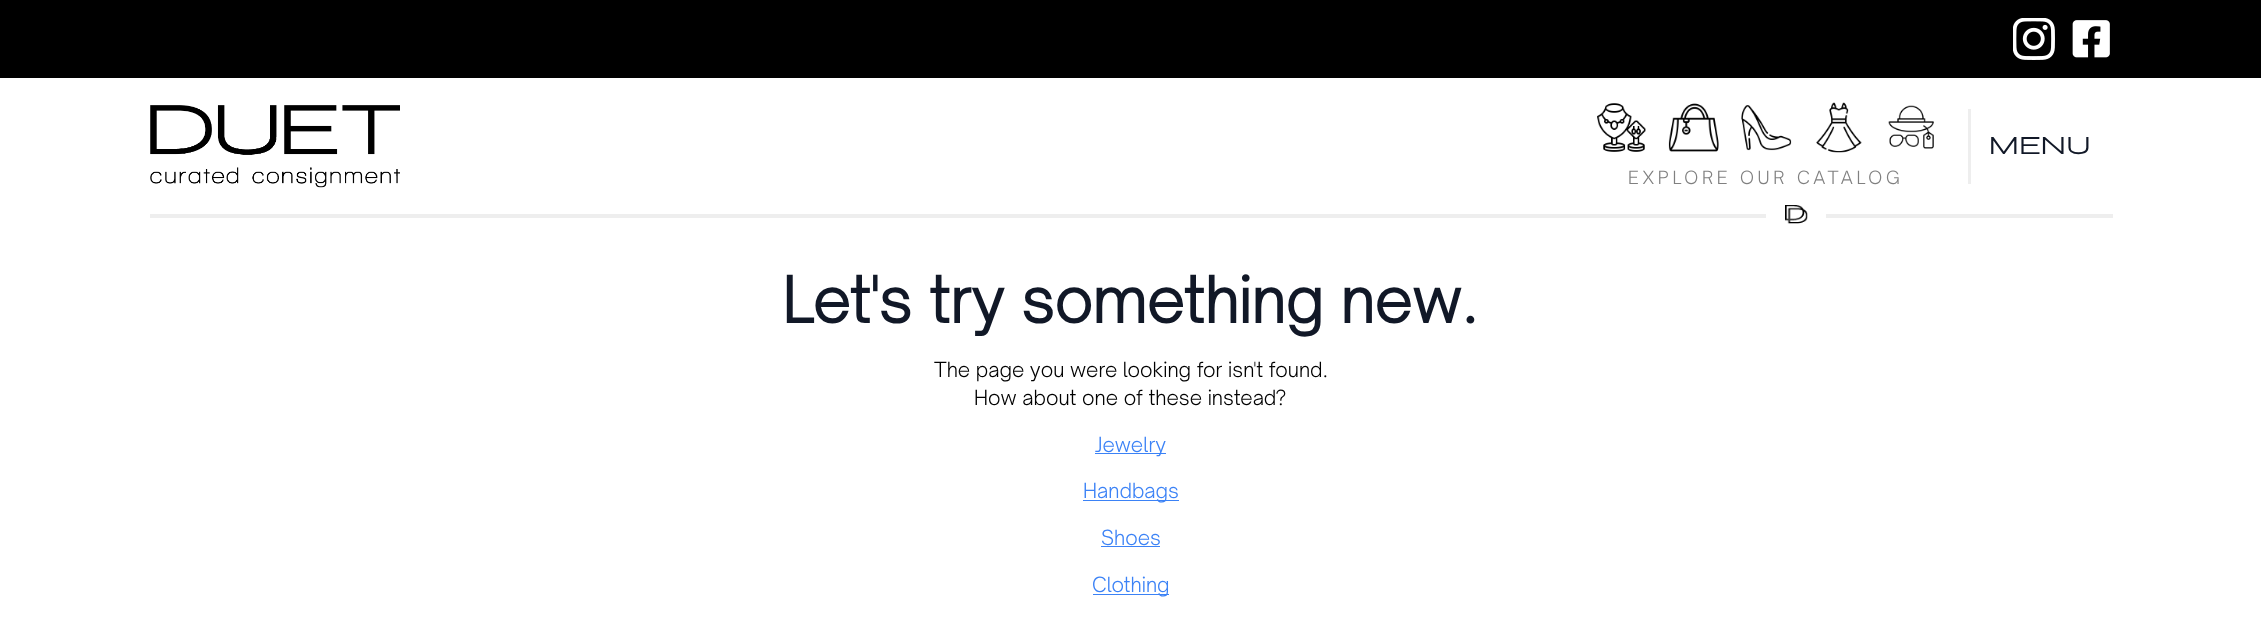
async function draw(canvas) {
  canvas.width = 2261
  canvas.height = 624
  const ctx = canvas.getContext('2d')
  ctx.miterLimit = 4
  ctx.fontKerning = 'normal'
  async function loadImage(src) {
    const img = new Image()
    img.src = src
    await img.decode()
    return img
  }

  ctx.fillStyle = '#fff'
  ctx.fillRect(0, 0, 2261, 624)
  ctx.fillStyle = '#000'
  ctx.fillRect(0, 0, 2261, 78)
  ctx.drawImage(await loadImage('image0.png'), 2013, 18, 42, 42)
  ctx.drawImage(await loadImage('image1.png'), 2072, 20, 38, 38)
  ctx.drawImage(await loadImage('image2.png'), 150, 105, 250, 83)
  ctx.fillStyle = '#eee'
  ctx.fillRect(1968, 109, 3, 75)
  ctx.letterSpacing = '2.5px'
  ctx.font = '900 25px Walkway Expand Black'
  ctx.fillStyle = '#111827'
  ctx.fillText('MENU', 1990, 154)
  ctx.drawImage(await loadImage('image3.png'), 1597, 103, 49, 49)
  ctx.drawImage(await loadImage('image4.png'), 1668, 103, 51, 49)
  ctx.drawImage(await loadImage('image5.png'), 1741, 105, 51, 46)
  ctx.drawImage(await loadImage('image6.png'), 1816, 102, 46, 51)
  ctx.drawImage(await loadImage('image7.png'), 1888, 105, 46, 44)
  ctx.letterSpacing = '3.75px'
  ctx.font = '300 17.5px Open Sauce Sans'
  ctx.fillStyle = '#808080'
  ctx.fillText('EXPLORE OUR CATALOG', 1628, 184)
  ctx.fillStyle = '#eee'
  ctx.fillRect(150, 214, 1616, 4)
  ctx.drawImage(await loadImage('image8.png'), 1785, 205, 23, 19)
  ctx.fillRect(1826, 214, 287, 4)
  ctx.letterSpacing = '0px'
  ctx.font = 'bold 61px Open Sauce Sans'
  ctx.fillStyle = '#111827'
  ctx.fillText('Let\'s try something new.', 782, 323)
  ctx.font = '300 20px Open Sauce Sans'
  ctx.fillStyle = '#000'
  ctx.fillText('The page you were looking for isn\'t found.', 934, 377)
  ctx.fillText('How about one of these instead?', 974, 405)
  ctx.fillStyle = '#3b82f6'
  ctx.fillRect(1095, 453, 71, 1)
  ctx.fillText('Jewelry', 1095, 452)
  ctx.fillRect(1083, 500, 96, 1)
  ctx.fillText('Handbags', 1083, 498)
  ctx.fillText('Shoes', 1101, 545)
  ctx.fillRect(1101, 546, 59, 1)
  ctx.fillRect(1093, 594, 76, 1)
  ctx.fillText('Clothing', 1092, 592)
}

draw(document.querySelector('canvas'))
